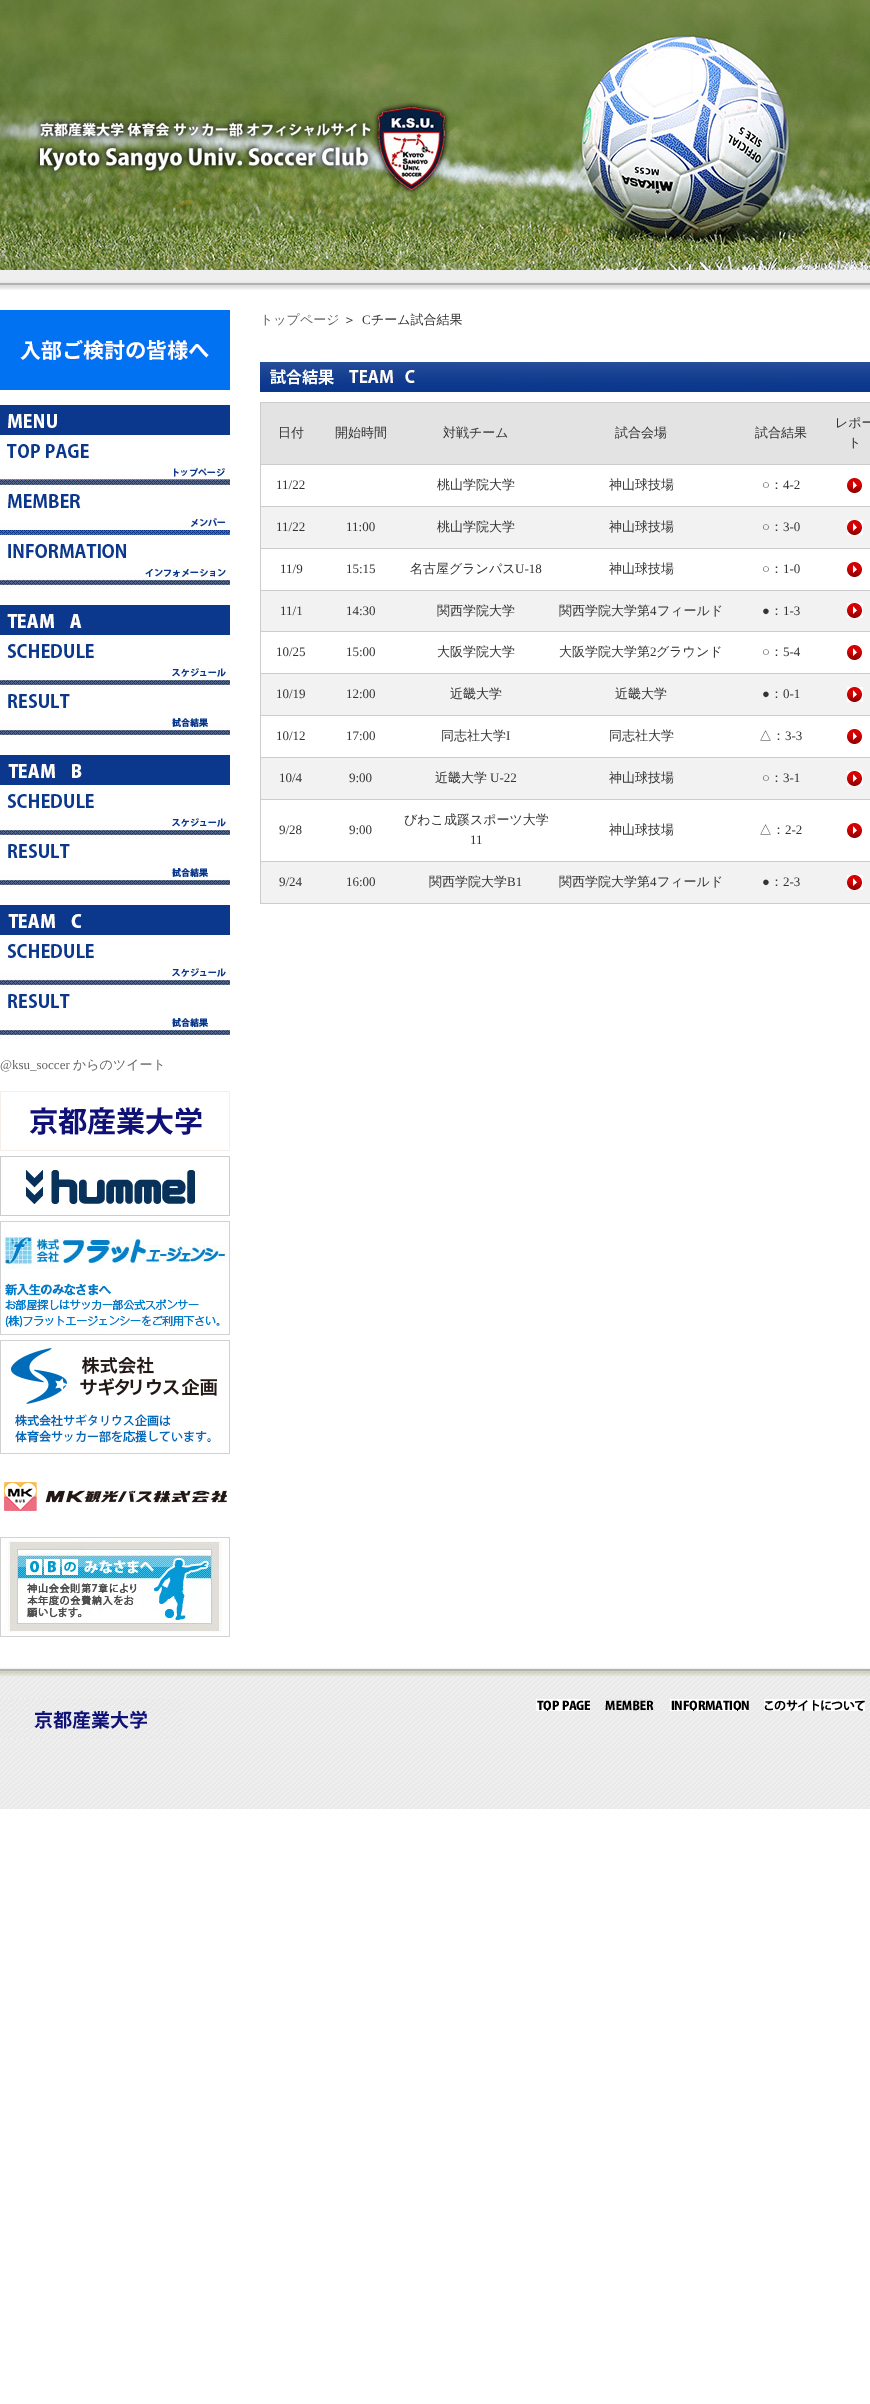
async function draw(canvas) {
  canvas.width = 870
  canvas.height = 2404
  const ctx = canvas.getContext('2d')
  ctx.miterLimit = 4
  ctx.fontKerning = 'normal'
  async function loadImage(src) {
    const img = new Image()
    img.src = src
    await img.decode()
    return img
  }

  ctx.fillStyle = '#fff'
  ctx.fillRect(0, 0, 870, 2404)
  ctx.drawImage(await loadImage('image0.png'), 0, 270, 870, 20)
  ctx.drawImage(await loadImage('image1.png'), 0, 0, 870, 270)
  ctx.font = '500 13px WenQuanYi Zen Hei'
  ctx.fillStyle = '#666'
  ctx.fillText('トップページ', 260, 324)
  ctx.fillStyle = '#333'
  ctx.fillText('＞', 343, 324)
  ctx.font = '13px Liberation Serif'
  ctx.fillText('C', 362, 324)
  ctx.font = '500 13px WenQuanYi Zen Hei'
  ctx.fillText('チーム試合結果', 371, 324)
  ctx.drawImage(await loadImage('image2.png'), 260, 362, 610, 30)
  ctx.fillStyle = '#ccc'
  ctx.fillRect(260, 402, 610, 1)
  ctx.fillRect(260, 903, 610, 1)
  ctx.fillRect(260, 402, 1, 502)
  ctx.fillStyle = '#e3e3e3'
  ctx.fillRect(261, 403, 609, 61)
  ctx.fillStyle = '#333'
  ctx.fillText('日付', 278, 437)
  ctx.fillText('開始時間', 335, 437)
  ctx.fillText('対戦チーム', 443, 437)
  ctx.fillText('試合会場', 615, 437)
  ctx.fillText('試合結果', 755, 437)
  ctx.fillStyle = '#ccc'
  ctx.fillRect(260, 464, 610, 1)
  ctx.fillStyle = '#333'
  ctx.fillText('レポー', 835, 427)
  ctx.fillText('ト', 848, 447)
  ctx.fillStyle = '#ccc'
  ctx.fillRect(260, 506, 610, 1)
  ctx.drawImage(await loadImage('image3.png'), 847, 478, 15, 15)
  ctx.font = '13px Liberation Serif'
  ctx.fillStyle = '#333'
  ctx.fillText('11/22', 276, 489)
  ctx.font = '500 13px WenQuanYi Zen Hei'
  ctx.fillText('桃山学院大学', 437, 489)
  ctx.fillText('神山球技場', 609, 489)
  ctx.font = '13px Liberation Serif'
  ctx.fillText('○', 762, 489)
  ctx.font = '500 13px WenQuanYi Zen Hei'
  ctx.fillText('：', 770, 489)
  ctx.font = '13px Liberation Serif'
  ctx.fillText('4-2', 783, 489)
  ctx.fillStyle = '#f2f2f2'
  ctx.fillRect(261, 507, 609, 41)
  ctx.fillStyle = '#ccc'
  ctx.fillRect(260, 548, 610, 1)
  ctx.drawImage(await loadImage('image4.png'), 847, 520, 16, 15)
  ctx.fillStyle = '#333'
  ctx.fillText('11/22', 276, 531)
  ctx.fillText('11:00', 346, 531)
  ctx.font = '500 13px WenQuanYi Zen Hei'
  ctx.fillText('桃山学院大学', 437, 531)
  ctx.fillText('神山球技場', 609, 531)
  ctx.font = '13px Liberation Serif'
  ctx.fillText('○', 762, 531)
  ctx.font = '500 13px WenQuanYi Zen Hei'
  ctx.fillText('：', 770, 531)
  ctx.font = '13px Liberation Serif'
  ctx.fillText('3-0', 783, 531)
  ctx.fillStyle = '#ccc'
  ctx.fillRect(260, 590, 610, 1)
  ctx.drawImage(await loadImage('image3.png'), 847, 562, 15, 15)
  ctx.fillStyle = '#333'
  ctx.fillText('11/9', 280, 573)
  ctx.fillText('15:15', 346, 573)
  ctx.font = '500 13px WenQuanYi Zen Hei'
  ctx.fillText('名古屋グランパス', 410, 573)
  ctx.font = '13px Liberation Serif'
  ctx.fillText('U-18', 515, 573)
  ctx.font = '500 13px WenQuanYi Zen Hei'
  ctx.fillText('神山球技場', 609, 573)
  ctx.font = '13px Liberation Serif'
  ctx.fillText('○', 762, 573)
  ctx.font = '500 13px WenQuanYi Zen Hei'
  ctx.fillText('：', 770, 573)
  ctx.font = '13px Liberation Serif'
  ctx.fillText('1-0', 783, 573)
  ctx.fillStyle = '#f2f2f2'
  ctx.fillRect(261, 591, 609, 40)
  ctx.fillStyle = '#ccc'
  ctx.fillRect(260, 631, 610, 1)
  ctx.drawImage(await loadImage('image4.png'), 847, 603, 16, 15)
  ctx.fillStyle = '#333'
  ctx.fillText('11/1', 280, 615)
  ctx.fillText('14:30', 346, 615)
  ctx.font = '500 13px WenQuanYi Zen Hei'
  ctx.fillText('関西学院大学', 437, 615)
  ctx.fillText('関西学院大学第', 559, 615)
  ctx.font = '13px Liberation Serif'
  ctx.fillText('4', 650, 615)
  ctx.font = '500 13px WenQuanYi Zen Hei'
  ctx.fillText('フィールド', 657, 615)
  ctx.font = '13px Liberation Serif'
  ctx.fillText('●', 762, 615)
  ctx.font = '500 13px WenQuanYi Zen Hei'
  ctx.fillText('：', 770, 615)
  ctx.font = '13px Liberation Serif'
  ctx.fillText('1-3', 783, 615)
  ctx.fillStyle = '#ccc'
  ctx.fillRect(260, 673, 610, 1)
  ctx.drawImage(await loadImage('image3.png'), 847, 645, 15, 15)
  ctx.fillStyle = '#333'
  ctx.fillText('10/25', 276, 656)
  ctx.fillText('15:00', 346, 656)
  ctx.font = '500 13px WenQuanYi Zen Hei'
  ctx.fillText('大阪学院大学', 437, 656)
  ctx.fillText('大阪学院大学第', 559, 656)
  ctx.font = '13px Liberation Serif'
  ctx.fillText('2', 650, 656)
  ctx.font = '500 13px WenQuanYi Zen Hei'
  ctx.fillText('グラウンド', 656, 656)
  ctx.font = '13px Liberation Serif'
  ctx.fillText('○', 762, 656)
  ctx.font = '500 13px WenQuanYi Zen Hei'
  ctx.fillText('：', 770, 656)
  ctx.font = '13px Liberation Serif'
  ctx.fillText('5-4', 783, 656)
  ctx.fillStyle = '#f2f2f2'
  ctx.fillRect(261, 674, 609, 41)
  ctx.fillStyle = '#ccc'
  ctx.fillRect(260, 715, 610, 1)
  ctx.drawImage(await loadImage('image4.png'), 847, 687, 16, 15)
  ctx.fillStyle = '#333'
  ctx.fillText('10/19', 276, 698)
  ctx.fillText('12:00', 346, 698)
  ctx.font = '500 13px WenQuanYi Zen Hei'
  ctx.fillText('近畿大学', 450, 698)
  ctx.fillText('近畿大学', 615, 698)
  ctx.font = '13px Liberation Serif'
  ctx.fillText('●', 762, 698)
  ctx.font = '500 13px WenQuanYi Zen Hei'
  ctx.fillText('：', 770, 698)
  ctx.font = '13px Liberation Serif'
  ctx.fillText('0-1', 783, 698)
  ctx.fillStyle = '#ccc'
  ctx.fillRect(260, 757, 610, 1)
  ctx.drawImage(await loadImage('image3.png'), 847, 729, 15, 15)
  ctx.fillStyle = '#333'
  ctx.fillText('10/12', 276, 740)
  ctx.fillText('17:00', 346, 740)
  ctx.font = '500 13px WenQuanYi Zen Hei'
  ctx.fillText('同志社大学', 441, 740)
  ctx.font = '13px Liberation Serif'
  ctx.fillText('I', 506, 740)
  ctx.font = '500 13px WenQuanYi Zen Hei'
  ctx.fillText('同志社大学', 609, 740)
  ctx.fillText('△：', 759, 740)
  ctx.font = '13px Liberation Serif'
  ctx.fillText('3-3', 785, 740)
  ctx.fillStyle = '#f2f2f2'
  ctx.fillRect(261, 758, 609, 41)
  ctx.fillStyle = '#ccc'
  ctx.fillRect(260, 799, 610, 1)
  ctx.drawImage(await loadImage('image4.png'), 847, 771, 16, 15)
  ctx.fillStyle = '#333'
  ctx.fillText('10/4', 279, 782)
  ctx.fillText('9:00', 349, 782)
  ctx.font = '500 13px WenQuanYi Zen Hei'
  ctx.fillText('近畿大学', 435, 782)
  ctx.font = '13px Liberation Serif'
  ctx.fillText('U-22', 490, 782)
  ctx.font = '500 13px WenQuanYi Zen Hei'
  ctx.fillText('神山球技場', 609, 782)
  ctx.font = '13px Liberation Serif'
  ctx.fillText('○', 762, 782)
  ctx.font = '500 13px WenQuanYi Zen Hei'
  ctx.fillText('：', 770, 782)
  ctx.font = '13px Liberation Serif'
  ctx.fillText('3-1', 783, 782)
  ctx.font = '500 13px WenQuanYi Zen Hei'
  ctx.fillText('びわこ成蹊スポーツ大学', 404, 824)
  ctx.font = '13px Liberation Serif'
  ctx.fillText('11', 470, 844)
  ctx.fillStyle = '#ccc'
  ctx.fillRect(260, 861, 610, 1)
  ctx.drawImage(await loadImage('image3.png'), 847, 823, 15, 15)
  ctx.fillStyle = '#333'
  ctx.fillText('9/28', 279, 834)
  ctx.fillText('9:00', 349, 834)
  ctx.font = '500 13px WenQuanYi Zen Hei'
  ctx.fillText('神山球技場', 609, 834)
  ctx.fillText('△：', 759, 834)
  ctx.font = '13px Liberation Serif'
  ctx.fillText('2-2', 785, 834)
  ctx.fillStyle = '#f2f2f2'
  ctx.fillRect(261, 862, 609, 41)
  ctx.fillStyle = '#333'
  ctx.fillText('9/24', 279, 886)
  ctx.fillText('16:00', 346, 886)
  ctx.font = '500 13px WenQuanYi Zen Hei'
  ctx.fillText('関西学院大学', 429, 886)
  ctx.font = '13px Liberation Serif'
  ctx.fillText('B1', 507, 886)
  ctx.font = '500 13px WenQuanYi Zen Hei'
  ctx.fillText('関西学院大学第', 559, 886)
  ctx.font = '13px Liberation Serif'
  ctx.fillText('4', 650, 886)
  ctx.font = '500 13px WenQuanYi Zen Hei'
  ctx.fillText('フィールド', 657, 886)
  ctx.font = '13px Liberation Serif'
  ctx.fillText('●', 762, 886)
  ctx.font = '500 13px WenQuanYi Zen Hei'
  ctx.fillText('：', 770, 886)
  ctx.font = '13px Liberation Serif'
  ctx.fillText('2-3', 783, 886)
  ctx.drawImage(await loadImage('image4.png'), 847, 875, 16, 15)
  ctx.drawImage(await loadImage('image5.png'), 0, 310, 230, 80)
  ctx.drawImage(await loadImage('image6.png'), 0, 405, 230, 30)
  ctx.drawImage(await loadImage('image7.png'), 0, 443, 230, 42)
  ctx.drawImage(await loadImage('image8.png'), 0, 493, 230, 42)
  ctx.drawImage(await loadImage('image9.png'), 0, 543, 230, 42)
  ctx.drawImage(await loadImage('image10.png'), 0, 605, 230, 30)
  ctx.drawImage(await loadImage('image11.png'), 0, 643, 230, 42)
  ctx.drawImage(await loadImage('image12.png'), 0, 693, 230, 42)
  ctx.drawImage(await loadImage('image13.png'), 0, 755, 230, 30)
  ctx.drawImage(await loadImage('image11.png'), 0, 793, 230, 42)
  ctx.drawImage(await loadImage('image12.png'), 0, 843, 230, 42)
  ctx.drawImage(await loadImage('image14.png'), 0, 905, 230, 30)
  ctx.drawImage(await loadImage('image11.png'), 0, 943, 230, 42)
  ctx.drawImage(await loadImage('image12.png'), 0, 993, 230, 42)
  ctx.fillStyle = '#666'
  ctx.fillText('@ksu_soccer', 0, 1069)
  ctx.font = '500 13px WenQuanYi Zen Hei'
  ctx.fillText('からのツイート', 73, 1069)
  ctx.drawImage(await loadImage('image15.png'), 0, 1091, 230, 60)
  ctx.drawImage(await loadImage('image16.png'), 0, 1156, 230, 60)
  ctx.drawImage(await loadImage('image17.png'), 0, 1221, 230, 114)
  ctx.drawImage(await loadImage('image18.png'), 0, 1340, 230, 114)
  ctx.drawImage(await loadImage('image19.png'), 4, 1482, 223, 29)
  ctx.drawImage(await loadImage('image20.png'), 0, 1537, 230, 100)
  ctx.drawImage(await loadImage('image21.png'), 0, 1667, 870, 142)
  ctx.drawImage(await loadImage('image22.png'), 0, 1699, 181, 40)
  ctx.drawImage(await loadImage('image23.png'), 536, 1699, 54, 12)
  ctx.drawImage(await loadImage('image24.png'), 605, 1699, 50, 12)
  ctx.drawImage(await loadImage('image25.png'), 670, 1699, 79, 12)
  ctx.drawImage(await loadImage('image26.png'), 764, 1699, 101, 12)
}

draw(document.querySelector('canvas'))
